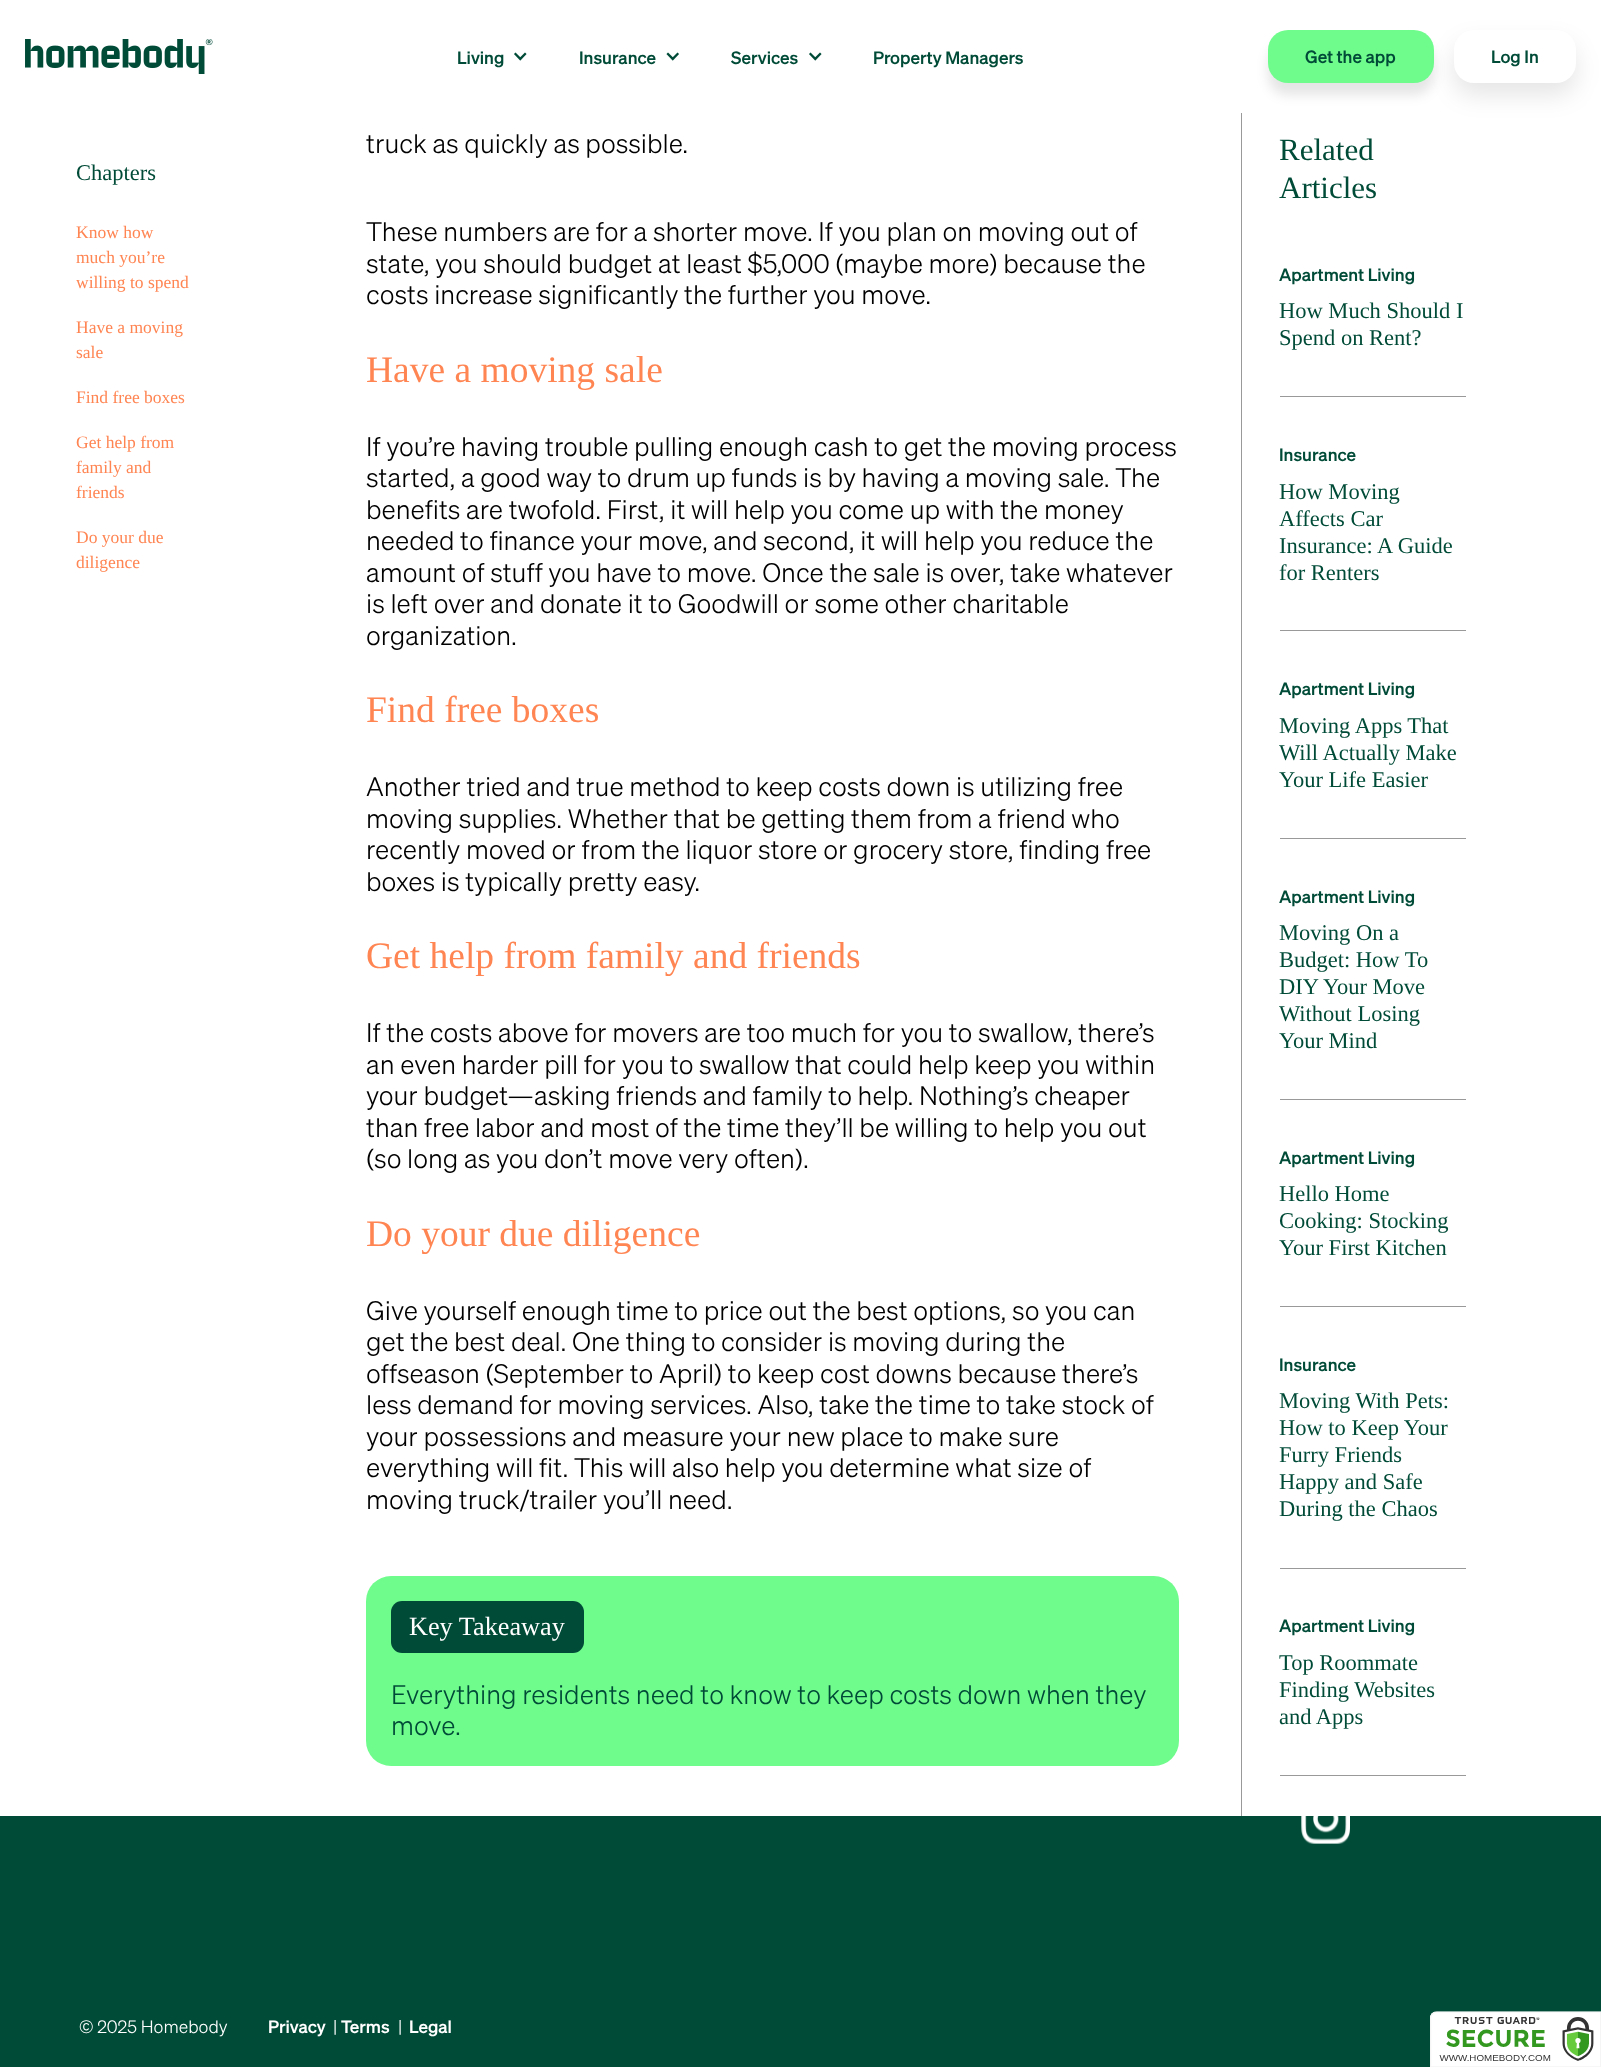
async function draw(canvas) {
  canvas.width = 1601
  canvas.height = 2067
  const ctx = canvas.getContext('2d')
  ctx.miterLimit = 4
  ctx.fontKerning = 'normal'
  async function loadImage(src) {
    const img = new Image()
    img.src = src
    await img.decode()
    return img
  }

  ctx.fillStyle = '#004b37'
  ctx.fillRect(0, 0, 1601, 2067)
  ctx.fillStyle = '#fff'
  ctx.fillRect(0, 0, 1601, 1816)
  ctx.drawImage(await loadImage('image0.png'), 25, 39, 188, 35)
  ctx.font = '500 17.5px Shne'
  ctx.fillStyle = '#004b37'
  ctx.fillText('Living', 457, 64)
  ctx.drawImage(await loadImage('image1.png'), 514, 52, 13, 9)
  ctx.fillText('Insurance', 579, 64)
  ctx.drawImage(await loadImage('image2.png'), 666, 52, 13, 9)
  ctx.fillText('Services', 731, 64)
  ctx.drawImage(await loadImage('image1.png'), 809, 52, 13, 9)
  ctx.fillText('Property Managers', 873, 64)
  ctx.fillStyle = '#0000001a'
  ctx.filter = 'blur(6px)'
  ctx.beginPath()
  ctx.roundRect(1268, 43, 166, 52, 20)
  ctx.fill()
  ctx.filter = 'none'
  ctx.fillStyle = '#70fc8d'
  ctx.beginPath()
  ctx.roundRect(1268, 30, 166, 53, 20)
  ctx.fill()
  ctx.fillStyle = '#004b37'
  ctx.fillText('Get the app', 1305, 63)
  ctx.fillStyle = '#0000001a'
  ctx.filter = 'blur(12.5px)'
  ctx.beginPath()
  ctx.roundRect(1454, 43, 122, 52, 20)
  ctx.fill()
  ctx.filter = 'none'
  ctx.fillStyle = '#fff'
  ctx.beginPath()
  ctx.roundRect(1454, 30, 122, 53, 20)
  ctx.fill()
  ctx.fillStyle = '#004b37'
  ctx.fillText('Log In', 1491, 63)
  ctx.font = '22.5px Liberation Serif'
  ctx.fillText('Chapters', 76, 180)
  ctx.font = '17.5px Liberation Serif'
  ctx.fillStyle = '#ff8553'
  ctx.fillText('Know how', 76, 238)
  ctx.fillText('much you’re', 76, 263)
  ctx.fillText('willing to spend', 76, 288)
  ctx.fillText('Have a moving', 76, 333)
  ctx.fillText('sale', 76, 358)
  ctx.fillText('Find free boxes', 76, 403)
  ctx.fillText('Get help from', 76, 448)
  ctx.fillText('family and', 76, 473)
  ctx.fillText('friends', 76, 498)
  ctx.fillText('Do your due', 76, 543)
  ctx.fillText('diligence', 76, 568)
  ctx.font = '300 26.25px Shne'
  ctx.fillStyle = '#000'
  ctx.fillText('truck as quickly as possible.', 366, 153)
  ctx.fillText('These numbers are for a shorter move. If you plan on moving out of', 366, 241)
  ctx.fillText('state, you should budget at least $5,000 (maybe more) because the', 366, 273)
  ctx.fillText('costs increase significantly the further you move.', 366, 304)
  ctx.font = '37.5px Liberation Serif'
  ctx.fillStyle = '#ff8553'
  ctx.fillText('Have a moving sale', 366, 382)
  ctx.font = '300 26.25px Shne'
  ctx.fillStyle = '#000'
  ctx.fillText('If you’re having trouble pulling enough cash to get the moving process', 366, 456)
  ctx.fillText('started, a good way to drum up funds is by having a moving sale. The', 366, 487)
  ctx.fillText('benefits are twofold. First, it will help you come up with the money', 366, 519)
  ctx.fillText('needed to finance your move, and second, it will help you reduce the', 366, 550)
  ctx.fillText('amount of stuff you have to move. Once the sale is over, take whatever', 366, 582)
  ctx.fillText('is left over and donate it to Goodwill or some other charitable', 366, 613)
  ctx.fillText('organization.', 366, 645)
  ctx.font = '37.5px Liberation Serif'
  ctx.fillStyle = '#ff8553'
  ctx.fillText('Find free boxes', 366, 722)
  ctx.font = '300 26.25px Shne'
  ctx.fillStyle = '#000'
  ctx.fillText('Another tried and true method to keep costs down is utilizing free', 366, 796)
  ctx.fillText('moving supplies. Whether that be getting them from a friend who', 366, 828)
  ctx.fillText('recently moved or from the liquor store or grocery store, finding free', 366, 859)
  ctx.fillText('boxes is typically pretty easy.', 366, 891)
  ctx.font = '37.5px Liberation Serif'
  ctx.fillStyle = '#ff8553'
  ctx.fillText('Get help from family and friends', 366, 968)
  ctx.font = '300 26.25px Shne'
  ctx.fillStyle = '#000'
  ctx.fillText('If the costs above for movers are too much for you to swallow, there’s', 366, 1042)
  ctx.fillText('an even harder pill for you to swallow that could help keep you within', 366, 1074)
  ctx.fillText('your budget—asking friends and family to help. Nothing’s cheaper', 366, 1105)
  ctx.fillText('than free labor and most of the time they’ll be willing to help you out', 366, 1137)
  ctx.fillText('(so long as you don’t move very often).', 366, 1168)
  ctx.font = '37.5px Liberation Serif'
  ctx.fillStyle = '#ff8553'
  ctx.fillText('Do your due diligence', 366, 1246)
  ctx.font = '300 26.25px Shne'
  ctx.fillStyle = '#000'
  ctx.fillText('Give yourself enough time to price out the best options, so you can', 366, 1320)
  ctx.fillText('get the best deal. One thing to consider is moving during the', 366, 1351)
  ctx.fillText('offseason (September to April) to keep cost downs because there’s', 366, 1383)
  ctx.fillText('less demand for moving services. Also, take the time to take stock of', 366, 1414)
  ctx.fillText('your possessions and measure your new place to make sure', 366, 1446)
  ctx.fillText('everything will fit. This will also help you determine what size of', 366, 1477)
  ctx.fillText('moving truck/trailer you’ll need.', 366, 1509)
  ctx.fillStyle = '#70fc8d'
  ctx.beginPath()
  ctx.roundRect(366, 1576, 813, 190, 25)
  ctx.fill()
  ctx.fillStyle = '#004b37'
  ctx.beginPath()
  ctx.roundRect(391, 1601, 193, 52, 11)
  ctx.fill()
  ctx.font = '26.25px Liberation Serif'
  ctx.fillStyle = '#fff'
  ctx.fillText('Key Takeaway', 409, 1635)
  ctx.font = '300 26.25px Shne'
  ctx.fillStyle = '#004b37'
  ctx.fillText('Everything residents need to know to keep costs down when they', 391, 1704)
  ctx.fillText('move.', 391, 1735)
  ctx.fillStyle = '#999'
  ctx.fillRect(1241, 113, 1, 1703)
  ctx.font = '31px Liberation Serif'
  ctx.fillStyle = '#004b37'
  ctx.fillText('Related', 1279, 160)
  ctx.fillText('Articles', 1279, 198)
  ctx.fillStyle = '#999'
  ctx.fillRect(1280, 396, 186, 1)
  ctx.font = '500 17.5px Shne'
  ctx.fillStyle = '#004b37'
  ctx.fillText('Apartment Living', 1279, 281)
  ctx.font = '22.5px Liberation Serif'
  ctx.fillText('How Much Should I', 1279, 318)
  ctx.fillText('Spend on Rent?', 1279, 345)
  ctx.fillStyle = '#999'
  ctx.fillRect(1280, 630, 186, 1)
  ctx.font = '500 17.5px Shne'
  ctx.fillStyle = '#004b37'
  ctx.fillText('Insurance', 1279, 461)
  ctx.font = '22.5px Liberation Serif'
  ctx.fillText('How Moving', 1279, 499)
  ctx.fillText('Affects Car', 1279, 526)
  ctx.fillText('Insurance: A Guide', 1279, 553)
  ctx.fillText('for Renters', 1279, 580)
  ctx.fillStyle = '#999'
  ctx.fillRect(1280, 838, 186, 1)
  ctx.font = '500 17.5px Shne'
  ctx.fillStyle = '#004b37'
  ctx.fillText('Apartment Living', 1279, 695)
  ctx.font = '22.5px Liberation Serif'
  ctx.fillText('Moving Apps That', 1279, 733)
  ctx.fillText('Will Actually Make', 1279, 760)
  ctx.fillText('Your Life Easier', 1279, 787)
  ctx.fillStyle = '#999'
  ctx.fillRect(1280, 1099, 186, 1)
  ctx.font = '500 17.5px Shne'
  ctx.fillStyle = '#004b37'
  ctx.fillText('Apartment Living', 1279, 903)
  ctx.font = '22.5px Liberation Serif'
  ctx.fillText('Moving On a', 1279, 940)
  ctx.fillText('Budget: How To', 1279, 967)
  ctx.fillText('DIY Your Move', 1279, 994)
  ctx.fillText('Without Losing', 1279, 1021)
  ctx.fillText('Your Mind', 1279, 1048)
  ctx.fillStyle = '#999'
  ctx.fillRect(1280, 1306, 186, 1)
  ctx.font = '500 17.5px Shne'
  ctx.fillStyle = '#004b37'
  ctx.fillText('Apartment Living', 1279, 1164)
  ctx.font = '22.5px Liberation Serif'
  ctx.fillText('Hello Home', 1279, 1201)
  ctx.fillText('Cooking: Stocking', 1279, 1228)
  ctx.fillText('Your First Kitchen', 1279, 1255)
  ctx.fillStyle = '#999'
  ctx.fillRect(1280, 1568, 186, 1)
  ctx.font = '500 17.5px Shne'
  ctx.fillStyle = '#004b37'
  ctx.fillText('Insurance', 1279, 1371)
  ctx.font = '22.5px Liberation Serif'
  ctx.fillText('Moving With Pets:', 1279, 1408)
  ctx.fillText('How to Keep Your', 1279, 1435)
  ctx.fillText('Furry Friends', 1279, 1462)
  ctx.fillText('Happy and Safe', 1279, 1489)
  ctx.fillText('During the Chaos', 1279, 1516)
  ctx.fillStyle = '#999'
  ctx.fillRect(1280, 1775, 186, 1)
  ctx.font = '500 17.5px Shne'
  ctx.fillStyle = '#004b37'
  ctx.fillText('Apartment Living', 1279, 1632)
  ctx.font = '22.5px Liberation Serif'
  ctx.fillText('Top Roommate', 1279, 1670)
  ctx.fillText('Finding Websites', 1279, 1697)
  ctx.fillText('and Apps', 1279, 1724)
  ctx.drawImage(await loadImage('image3.png'), 1301, 1816, 49, 28)
  ctx.font = '300 17.5px Shne'
  ctx.fillStyle = '#fff'
  ctx.fillText('© 2025 Homebody', 79, 2033)
  ctx.font = '500 17.5px Shne'
  ctx.fillText('Privacy', 268, 2033)
  ctx.font = '300 17.5px Shne'
  ctx.fillText('|', 333, 2033)
  ctx.font = '500 17.5px Shne'
  ctx.fillText('Terms', 341, 2033)
  ctx.font = '300 17.5px Shne'
  ctx.fillText('|', 398, 2033)
  ctx.font = '500 17.5px Shne'
  ctx.fillText('Legal', 409, 2033)
  ctx.drawImage(await loadImage('image4.png'), 1430, 2011, 171, 56)
}

draw(document.querySelector('canvas'))
